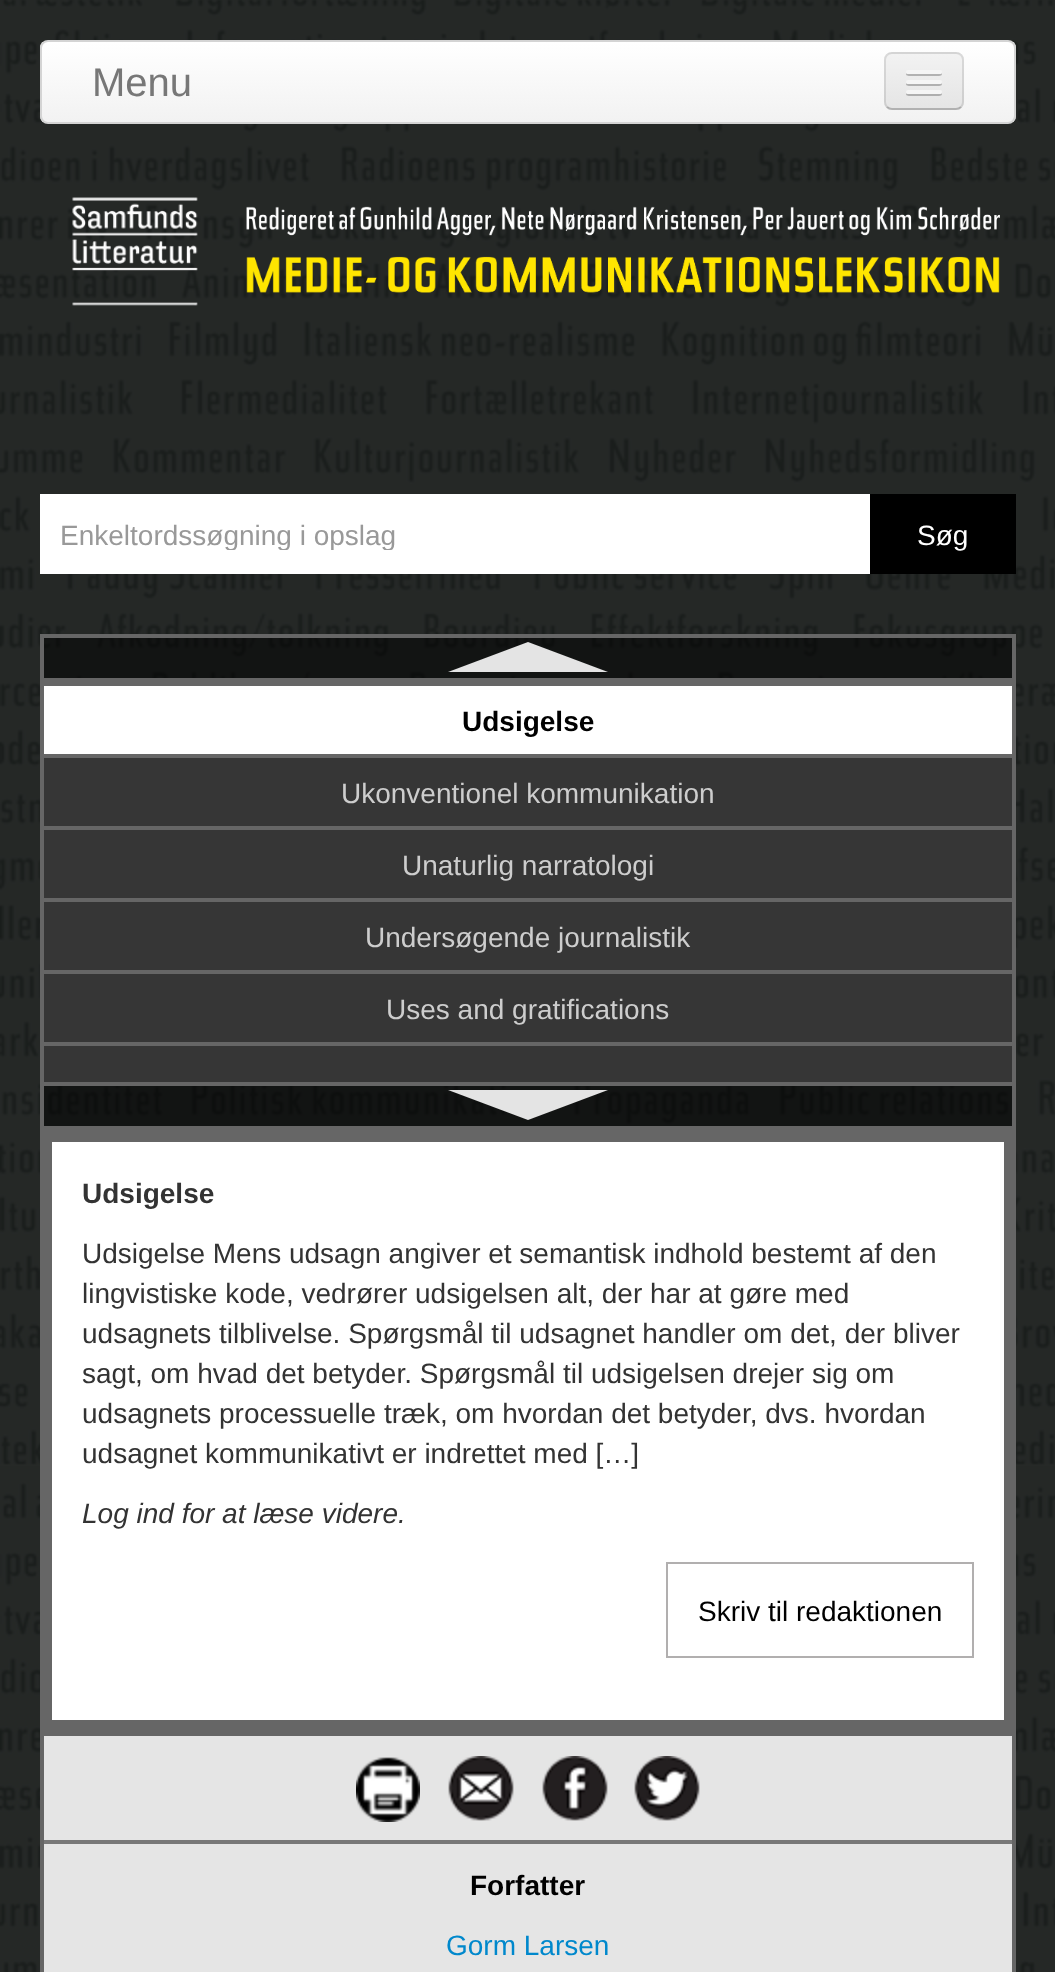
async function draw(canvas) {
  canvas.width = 1055
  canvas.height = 1972
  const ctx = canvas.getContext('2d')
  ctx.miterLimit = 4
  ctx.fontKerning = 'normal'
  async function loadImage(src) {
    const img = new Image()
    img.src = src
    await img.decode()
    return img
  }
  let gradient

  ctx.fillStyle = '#fff'
  ctx.fillRect(0, 0, 1055, 1972)
  ctx.drawImage(await loadImage('image0.png'), 0, 0, 1055, 1972)
  ctx.save()
  ctx.beginPath()
  ctx.roundRect(40, 40, 976, 84, 8)
  ctx.clip()
  gradient = ctx.createLinearGradient(528, 42, 528, 122)
  gradient.addColorStop(0, '#fff')
  gradient.addColorStop(1, '#f2f2f2')
  ctx.fillStyle = gradient
  ctx.fillRect(40, 42, 976, 80)
  ctx.restore()
  ctx.beginPath()
  ctx.roundRect(41, 41, 974, 82, 7)
  ctx.strokeStyle = '#d4d4d4'
  ctx.lineWidth = 2
  ctx.stroke()
  ctx.font = '40px Liberation Sans'
  ctx.fillStyle = '#777'
  ctx.fillText('Menu', 92, 96)
  ctx.fillStyle = '#ededed'
  ctx.beginPath()
  ctx.roundRect(884, 52, 80, 58, 8)
  ctx.fill()
  ctx.save()
  ctx.beginPath()
  ctx.roundRect(884, 52, 80, 58, 8)
  ctx.clip()
  gradient = ctx.createLinearGradient(924, 54, 924, 108)
  gradient.addColorStop(0, '#f2f2f2')
  gradient.addColorStop(1, '#e5e5e5')
  ctx.fillStyle = gradient
  ctx.fillRect(884, 54, 80, 54)
  ctx.restore()
  ctx.beginPath()
  ctx.moveTo(961, 107)
  ctx.bezierCurveTo(959.5, 108.5, 958, 109, 956, 109)
  ctx.lineTo(892, 109)
  ctx.bezierCurveTo(890, 109, 888.5, 108.5, 887, 107)
  ctx.strokeStyle = '#00000040'
  ctx.stroke()
  ctx.beginPath()
  ctx.moveTo(887, 107)
  ctx.bezierCurveTo(885.5, 105.5, 885, 104, 885, 102)
  ctx.lineTo(885, 60)
  ctx.bezierCurveTo(885, 58, 885.5, 56.5, 887, 55)
  ctx.bezierCurveTo(888.5, 53.5, 890, 53, 892, 53)
  ctx.lineTo(956, 53)
  ctx.bezierCurveTo(958, 53, 959.5, 53.5, 961, 55)
  ctx.bezierCurveTo(962.5, 56.5, 963, 58, 963, 60)
  ctx.lineTo(963, 102)
  ctx.bezierCurveTo(963, 104, 962.5, 105.5, 961, 107)
  ctx.strokeStyle = '#0000001a'
  ctx.stroke()
  ctx.fillStyle = '#b2b2b2'
  ctx.beginPath()
  ctx.moveTo(906.5, 73)
  ctx.bezierCurveTo(904, 77, 913, 76, 913.5, 76)
  ctx.lineTo(934.5, 76)
  ctx.bezierCurveTo(935, 76, 944, 77, 941.5, 73)
  ctx.bezierCurveTo(941.5, 73.5, 940.5, 74, 940, 74)
  ctx.lineTo(908, 74)
  ctx.bezierCurveTo(907.5, 74, 906.5, 73.5, 906.5, 73)
  ctx.closePath()
  ctx.fill()
  ctx.fillStyle = '#f5f5f5'
  ctx.beginPath()
  ctx.roundRect(906, 70, 36, 4, 2)
  ctx.fill()
  ctx.fillStyle = '#b0b0b0'
  ctx.beginPath()
  ctx.moveTo(906.5, 83)
  ctx.bezierCurveTo(904, 87, 913, 86, 913.5, 86)
  ctx.lineTo(934.5, 86)
  ctx.bezierCurveTo(935, 86, 944, 87, 941.5, 83)
  ctx.bezierCurveTo(941.5, 83.5, 940.5, 84, 940, 84)
  ctx.lineTo(908, 84)
  ctx.bezierCurveTo(907.5, 84, 906.5, 83.5, 906.5, 83)
  ctx.closePath()
  ctx.fill()
  ctx.fillStyle = '#f5f5f5'
  ctx.beginPath()
  ctx.roundRect(906, 80, 36, 4, 2)
  ctx.fill()
  ctx.fillStyle = '#aeaeae'
  ctx.beginPath()
  ctx.moveTo(906.5, 93)
  ctx.bezierCurveTo(904, 97, 913, 96, 913.5, 96)
  ctx.lineTo(934.5, 96)
  ctx.bezierCurveTo(935, 96, 944, 97, 941.5, 93)
  ctx.bezierCurveTo(941.5, 93.5, 940.5, 94, 940, 94)
  ctx.lineTo(908, 94)
  ctx.bezierCurveTo(907.5, 94, 906.5, 93.5, 906.5, 93)
  ctx.closePath()
  ctx.fill()
  ctx.fillStyle = '#f5f5f5'
  ctx.beginPath()
  ctx.roundRect(906, 90, 36, 4, 2)
  ctx.fill()
  ctx.drawImage(await loadImage('image1.png'), 72, 197, 126, 109)
  ctx.drawImage(await loadImage('image2.png'), 246, 206, 754, 87)
  ctx.fillStyle = '#fff'
  ctx.fillRect(40, 494, 830, 80)
  ctx.save()
  ctx.beginPath()
  ctx.rect(60, 518, 790, 32)
  ctx.clip()
  ctx.font = '28px Liberation Sans'
  ctx.fillStyle = '#999'
  ctx.fillText('Enkeltordssøgning i opslag', 60, 545)
  ctx.restore()
  ctx.fillStyle = '#000'
  ctx.fillRect(870, 494, 146, 80)
  ctx.font = '28px Liberation Sans'
  ctx.fillStyle = '#fff'
  ctx.fillText('Søg', 917, 545)
  ctx.fillStyle = '#00000080'
  ctx.beginPath()
  ctx.rect(42, 636, 972, 44)
  ctx.fill()
  ctx.strokeStyle = '#666'
  ctx.lineWidth = 4
  ctx.stroke()
  ctx.fillStyle = '#e4e4e4'
  ctx.beginPath()
  ctx.moveTo(608, 672)
  ctx.lineTo(448, 672)
  ctx.lineTo(528, 642)
  ctx.closePath()
  ctx.fill()
  ctx.fillStyle = '#666'
  ctx.fillRect(40, 682, 976, 4)
  ctx.fillStyle = '#fff'
  ctx.fillRect(44, 686, 968, 68)
  ctx.fillStyle = '#666'
  ctx.fillRect(1012, 686, 4, 396)
  ctx.fillRect(40, 754, 976, 4)
  ctx.fillRect(40, 686, 4, 72)
  ctx.font = 'bold 28px Liberation Sans'
  ctx.fillStyle = '#000'
  ctx.fillText('Udsigelse', 462, 731)
  ctx.fillStyle = '#363636'
  ctx.fillRect(44, 758, 968, 68)
  ctx.fillStyle = '#666'
  ctx.fillRect(40, 826, 976, 4)
  ctx.fillRect(40, 758, 4, 72)
  ctx.font = '28px Liberation Sans'
  ctx.fillStyle = '#cdcdcd'
  ctx.fillText('Ukonventionel kommunikation', 341, 803)
  ctx.fillStyle = '#363636'
  ctx.fillRect(44, 830, 968, 68)
  ctx.fillStyle = '#666'
  ctx.fillRect(40, 898, 976, 4)
  ctx.fillRect(40, 830, 4, 72)
  ctx.fillStyle = '#cdcdcd'
  ctx.fillText('Unaturlig narratologi', 402, 875)
  ctx.fillStyle = '#363636'
  ctx.fillRect(44, 902, 968, 68)
  ctx.fillStyle = '#666'
  ctx.fillRect(40, 970, 976, 4)
  ctx.fillRect(40, 902, 4, 72)
  ctx.fillStyle = '#cdcdcd'
  ctx.fillText('Undersøgende journalistik', 365, 947)
  ctx.fillStyle = '#363636'
  ctx.fillRect(44, 974, 968, 68)
  ctx.fillStyle = '#666'
  ctx.fillRect(40, 1042, 976, 4)
  ctx.fillRect(40, 974, 4, 108)
  ctx.fillStyle = '#cdcdcd'
  ctx.fillText('Uses and gratifications', 386, 1019)
  ctx.fillStyle = '#363636'
  ctx.fillRect(44, 1046, 968, 36)
  ctx.fillStyle = '#00000080'
  ctx.beginPath()
  ctx.rect(42, 1084, 972, 44)
  ctx.fill()
  ctx.stroke()
  ctx.fillStyle = '#e4e4e4'
  ctx.beginPath()
  ctx.moveTo(448, 1090)
  ctx.lineTo(608, 1090)
  ctx.lineTo(528, 1120)
  ctx.closePath()
  ctx.fill()
  ctx.fillStyle = '#fff'
  ctx.beginPath()
  ctx.rect(46, 1136, 964, 590)
  ctx.fill()
  ctx.lineWidth = 12
  ctx.stroke()
  ctx.font = 'bold 28px Liberation Sans'
  ctx.fillStyle = '#333'
  ctx.fillText('Udsigelse', 82, 1203)
  ctx.font = '28px Liberation Sans'
  ctx.fillText('Udsigelse Mens udsagn angiver et semantisk indhold bestemt af den', 82, 1263)
  ctx.fillText('lingvistiske kode, vedrører udsigelsen alt, der har at gøre med', 82, 1303)
  ctx.fillText('udsagnets tilblivelse. Spørgsmål til udsagnet handler om det, der bliver', 82, 1343)
  ctx.fillText('sagt, om hvad det betyder. Spørgsmål til udsigelsen drejer sig om', 82, 1383)
  ctx.fillText('udsagnets processuelle træk, om hvordan det betyder, dvs. hvordan', 82, 1423)
  ctx.fillText('udsagnet kommunikativt er indrettet med […]', 82, 1463)
  ctx.font = 'italic 28px Liberation Sans'
  ctx.fillText('Log ind for at læse videre.', 82, 1523)
  ctx.strokeStyle = '#b1afaf'
  ctx.lineWidth = 2
  ctx.strokeRect(667, 1563, 306, 94)
  ctx.font = '28px Liberation Sans'
  ctx.fillStyle = '#000'
  ctx.fillText('Skriv til redaktionen', 698, 1621)
  ctx.strokeStyle = '#666'
  ctx.lineWidth = 4
  ctx.strokeRect(42, 1734, 972, 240)
  ctx.fillStyle = '#e5e5e5'
  ctx.fillRect(44, 1736, 968, 104)
  ctx.drawImage(await loadImage('image3.png'), 356, 1757, 64, 65)
  ctx.drawImage(await loadImage('image4.png'), 448, 1756, 66, 65)
  ctx.drawImage(await loadImage('image5.png'), 542, 1756, 66, 65)
  ctx.drawImage(await loadImage('image6.png'), 634, 1756, 66, 65)
  ctx.fillRect(44, 1844, 968, 128)
  ctx.fillStyle = '#787878'
  ctx.fillRect(44, 1840, 968, 4)
  ctx.font = 'bold 28px Liberation Sans'
  ctx.fillStyle = '#000'
  ctx.fillText('Forfatter', 470, 1895)
  ctx.font = '28px Liberation Sans'
  ctx.fillStyle = '#08c'
  ctx.fillText('Gorm Larsen', 446, 1955)
}

draw(document.querySelector('canvas'))
